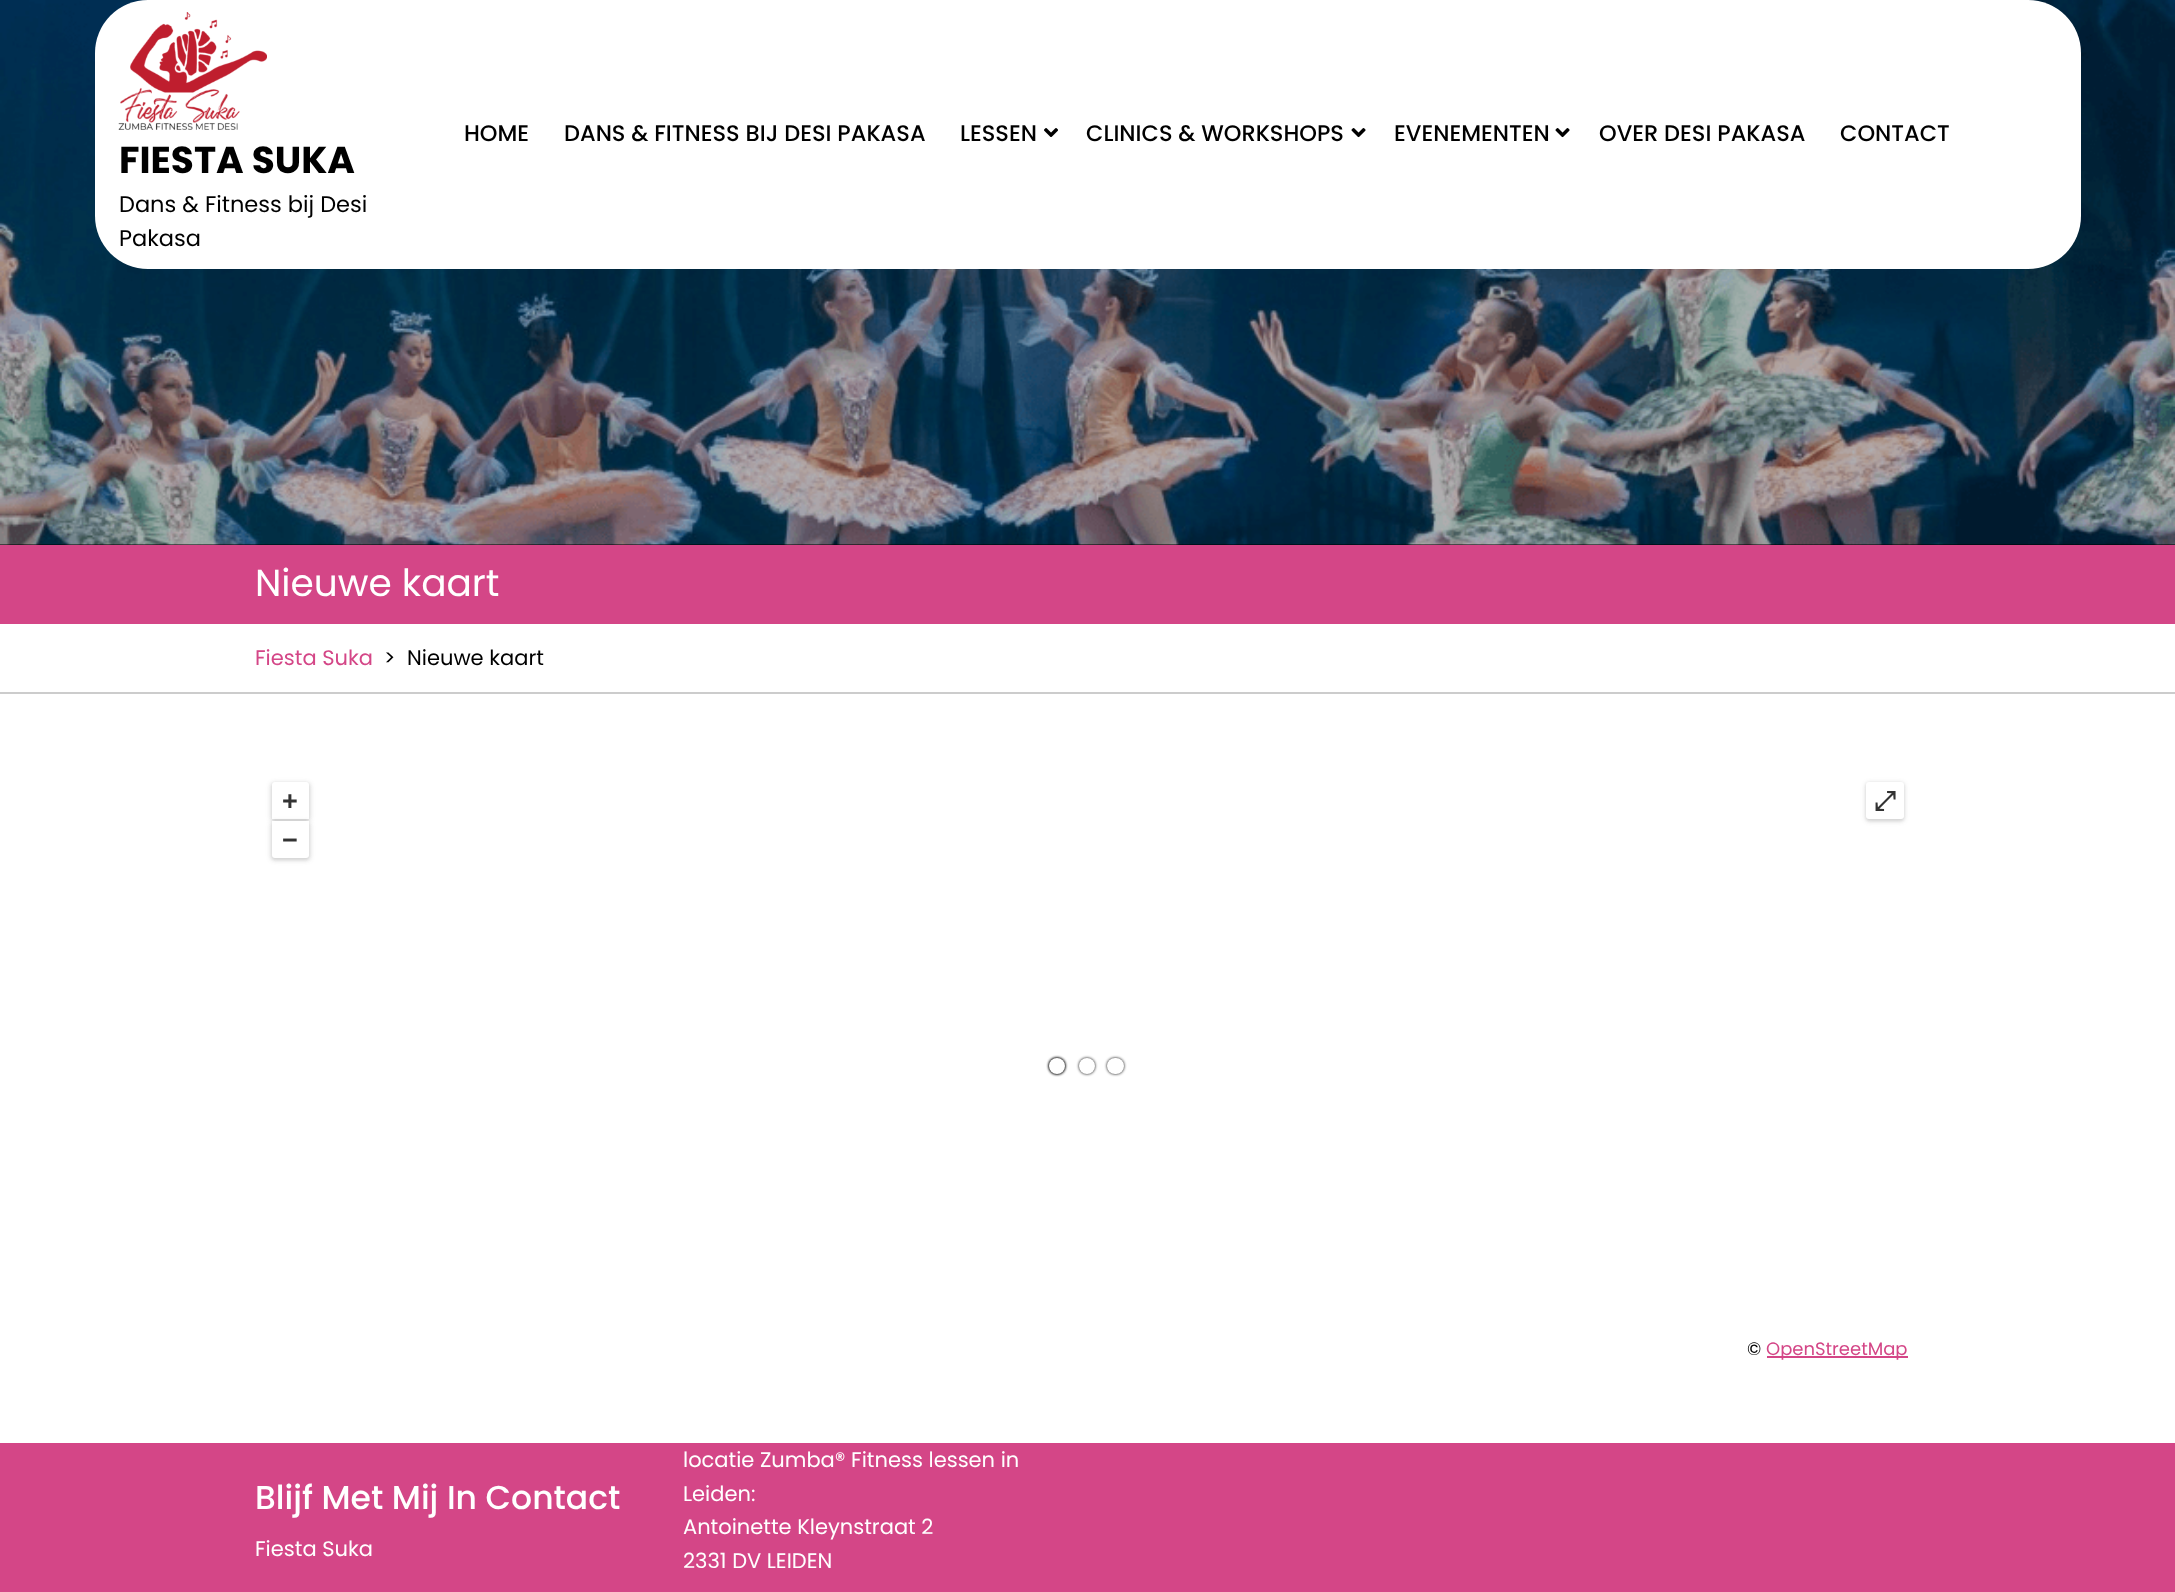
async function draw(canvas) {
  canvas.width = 2175
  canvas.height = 1592
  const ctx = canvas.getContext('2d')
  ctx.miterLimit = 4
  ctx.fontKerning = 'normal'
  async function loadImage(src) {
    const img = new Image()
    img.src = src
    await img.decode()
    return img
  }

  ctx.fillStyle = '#fff'
  ctx.fillRect(0, 0, 2175, 1592)
  ctx.fillStyle = '#000'
  ctx.fillRect(0, 0, 2175, 545)
  ctx.drawImage(await loadImage('image3.png'), 0, 0, 2175, 545)
  ctx.fillStyle = '#fff'
  ctx.beginPath()
  ctx.roundRect(95, 0, 1986, 269, 53)
  ctx.fill()
  ctx.font = '500 22.5px Poppins'
  ctx.fillStyle = '#000'
  ctx.fillText('HOME', 464, 141)
  ctx.fillText('DANS & FITNESS BIJ DESI PAKASA', 564, 141)
  ctx.fillText('LESSEN', 960, 141)
  ctx.drawImage(await loadImage('image0.png'), 1044, 128, 14, 9)
  ctx.fillText('CLINICS & WORKSHOPS', 1086, 141)
  ctx.drawImage(await loadImage('image1.png'), 1351, 128, 15, 10)
  ctx.fillText('EVENEMENTEN', 1394, 141)
  ctx.drawImage(await loadImage('image1.png'), 1555, 128, 15, 10)
  ctx.fillText('OVER DESI PAKASA', 1599, 141)
  ctx.fillText('CONTACT', 1840, 141)
  ctx.drawImage(await loadImage('image2.png'), 118, 12, 149, 118)
  ctx.font = 'bold 37.5px Poppins'
  ctx.fillText('FIESTA SUKA', 119, 173)
  ctx.font = '22.5px Poppins'
  ctx.fillText('Dans & Fitness bij Desi', 119, 212)
  ctx.fillText('Pakasa', 119, 246)
  ctx.fillStyle = '#d44687'
  ctx.fillRect(0, 545, 2175, 79)
  ctx.font = '37.5px Poppins'
  ctx.fillStyle = '#fff'
  ctx.fillText('Nieuwe kaart', 255, 596)
  ctx.fillStyle = '#ccc'
  ctx.fillRect(0, 692, 2175, 2)
  ctx.font = '21px Poppins'
  ctx.fillStyle = '#d44687'
  ctx.fillText('Fiesta Suka', 255, 665)
  ctx.fillStyle = '#000'
  ctx.fillText('>', 384, 665)
  ctx.fillText('Nieuwe kaart', 407, 665)
  ctx.fillStyle = '#42424229'
  ctx.filter = 'blur(2px)'
  ctx.beginPath()
  ctx.roundRect(270, 782, 41, 40, 5)
  ctx.fill()
  ctx.filter = 'none'
  ctx.fillStyle = '#42424214'
  ctx.filter = 'blur(1px)'
  ctx.beginPath()
  ctx.roundRect(272, 783, 37, 38, 3)
  ctx.fill()
  ctx.filter = 'none'
  ctx.fillStyle = '#fff'
  ctx.beginPath()
  ctx.roundRect(272, 782, 37, 37, [3, 3, 0, 0])
  ctx.fill()
  ctx.font = 'bold 27px Liberation Sans'
  ctx.fillStyle = '#333'
  ctx.fillText('+', 282, 810)
  ctx.fillStyle = '#42424229'
  ctx.filter = 'blur(2px)'
  ctx.beginPath()
  ctx.roundRect(270, 821, 41, 40, 5)
  ctx.fill()
  ctx.filter = 'none'
  ctx.fillStyle = '#42424214'
  ctx.filter = 'blur(1px)'
  ctx.beginPath()
  ctx.roundRect(272, 822, 37, 38, 3)
  ctx.fill()
  ctx.filter = 'none'
  ctx.fillStyle = '#fff'
  ctx.beginPath()
  ctx.roundRect(272, 821, 37, 37, [0, 0, 3, 3])
  ctx.fill()
  ctx.fillStyle = '#333'
  ctx.fillText('−', 282, 849)
  ctx.fillStyle = '#42424229'
  ctx.filter = 'blur(2px)'
  ctx.beginPath()
  ctx.roundRect(1865, 782, 40, 40, 5)
  ctx.fill()
  ctx.filter = 'none'
  ctx.fillStyle = '#42424214'
  ctx.filter = 'blur(1px)'
  ctx.beginPath()
  ctx.roundRect(1866, 783, 38, 38, 3)
  ctx.fill()
  ctx.filter = 'none'
  ctx.fillStyle = '#fff'
  ctx.beginPath()
  ctx.roundRect(1866, 782, 38, 37, 3)
  ctx.fill()
  ctx.font = 'bold 27px FreeSerif'
  ctx.fillStyle = '#333'
  ctx.fillText('⤢', 1874, 810)
  ctx.font = '18px Poppins'
  ctx.fillStyle = '#000'
  ctx.fillText('©', 1747, 1355)
  ctx.fillStyle = '#d44687'
  ctx.fillRect(1767, 1356, 141, 2)
  ctx.fillText('OpenStreetMap', 1766, 1355)
  ctx.fillStyle = '#000'
  ctx.filter = 'blur(1.5px)'
  ctx.beginPath()
  ctx.roundRect(1049, 1058, 16, 16, 8)
  ctx.fill()
  ctx.filter = 'none'
  ctx.filter = 'blur(1.5px)'
  ctx.beginPath()
  ctx.roundRect(1049, 1058, 16, 16, 8)
  ctx.fill()
  ctx.filter = 'none'
  ctx.fillStyle = '#fff'
  ctx.beginPath()
  ctx.arc(1057, 1066, 8, 0, 2 * Math.PI)
  ctx.fill()
  ctx.fillStyle = '#000'
  ctx.filter = 'blur(1.5px)'
  ctx.beginPath()
  ctx.roundRect(1079, 1058, 16, 16, 8)
  ctx.fill()
  ctx.filter = 'none'
  ctx.fillStyle = '#fff'
  ctx.beginPath()
  ctx.arc(1087, 1066, 8, 0, 2 * Math.PI)
  ctx.fill()
  ctx.fillStyle = '#000'
  ctx.filter = 'blur(1.5px)'
  ctx.beginPath()
  ctx.roundRect(1107, 1058, 17, 16, 8)
  ctx.fill()
  ctx.filter = 'none'
  ctx.fillStyle = '#fff'
  ctx.beginPath()
  ctx.roundRect(1107, 1058, 17, 16, 8)
  ctx.fill()
  ctx.fillStyle = '#d44687'
  ctx.fillRect(0, 1443, 2175, 149)
  ctx.font = '500 33px Poppins'
  ctx.fillStyle = '#fff'
  ctx.fillText('Blijf Met Mij In Contact', 255, 1509)
  ctx.font = '21px Poppins'
  ctx.fillText('Fiesta Suka', 255, 1556)
  ctx.fillText('locatie Zumba® Fitness lessen in', 683, 1467)
  ctx.fillText('Leiden:', 683, 1501)
  ctx.fillText('Antoinette Kleynstraat 2', 683, 1534)
  ctx.fillText('2331 DV LEIDEN', 683, 1568)
}

draw(document.querySelector('canvas'))
